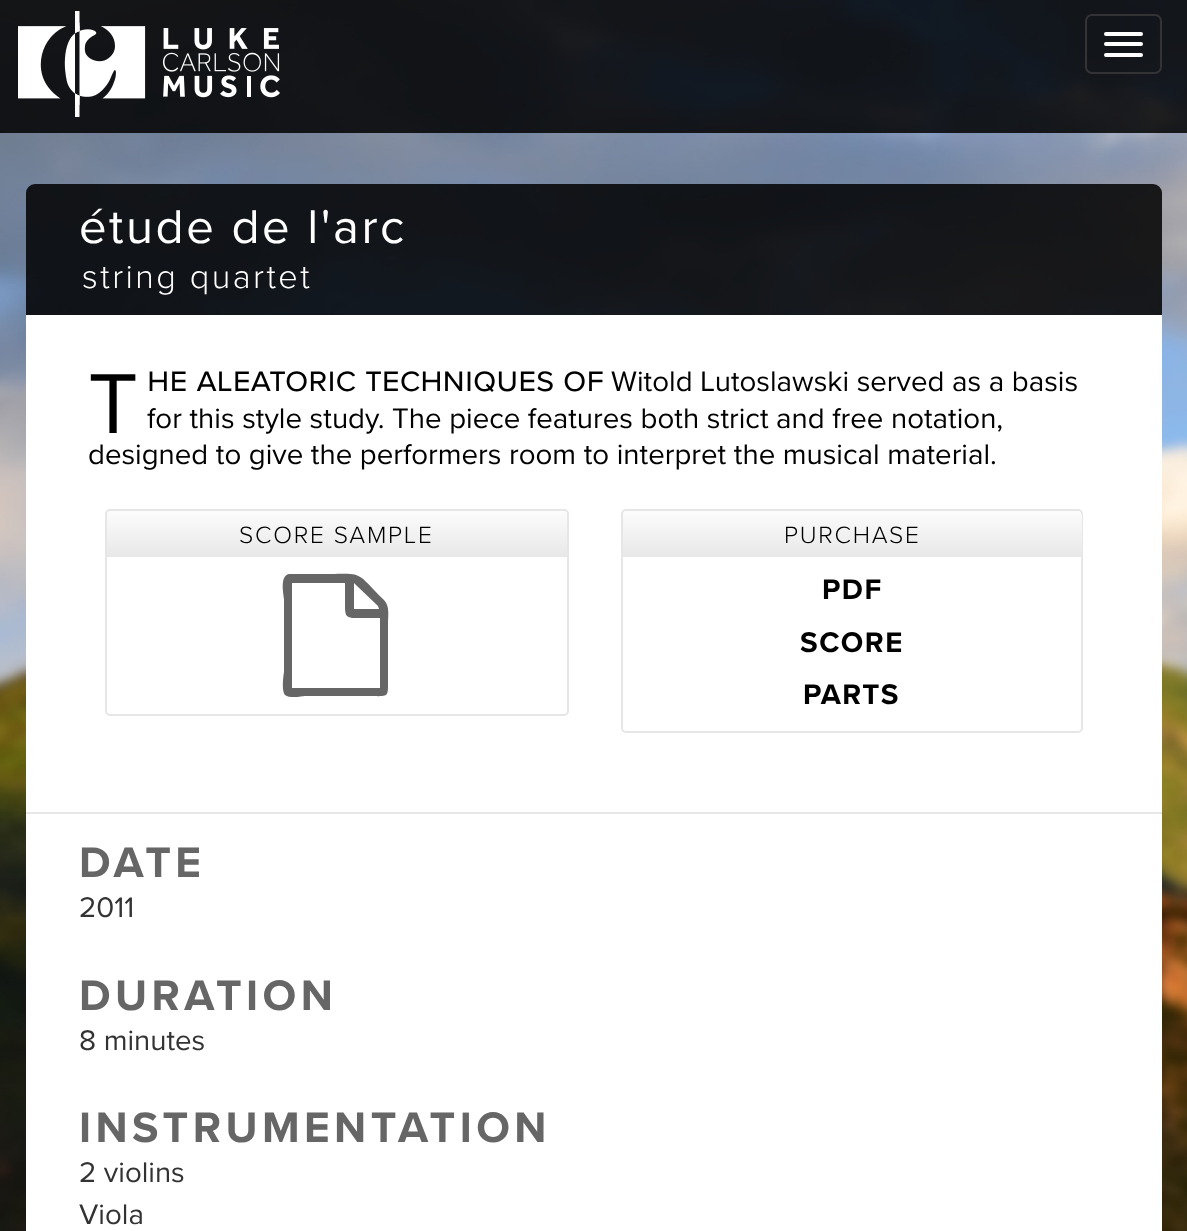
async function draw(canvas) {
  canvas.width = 1187
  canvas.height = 1231
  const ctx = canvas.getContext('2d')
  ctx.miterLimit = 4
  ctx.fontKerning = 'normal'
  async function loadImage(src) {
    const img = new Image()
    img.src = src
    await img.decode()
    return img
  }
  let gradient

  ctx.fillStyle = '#fff'
  ctx.fillRect(0, 0, 1187, 1231)
  ctx.drawImage(await loadImage('image0.png'), 0, 0, 1187, 1231)
  ctx.fillStyle = '#000000d9'
  ctx.fillRect(0, 0, 1187, 133)
  ctx.drawImage(await loadImage('image1.png'), 18, 11, 262, 106)
  ctx.beginPath()
  ctx.roundRect(1086, 15, 75, 58, 6)
  ctx.strokeStyle = '#333'
  ctx.lineWidth = 2
  ctx.stroke()
  ctx.fillStyle = '#fff'
  ctx.beginPath()
  ctx.roundRect(1104, 32, 39, 4, 2)
  ctx.fill()
  ctx.beginPath()
  ctx.roundRect(1104, 42, 39, 4, 2)
  ctx.fill()
  ctx.beginPath()
  ctx.roundRect(1104, 53, 39, 4, 2)
  ctx.fill()
  ctx.fillStyle = '#000000d9'
  ctx.beginPath()
  ctx.roundRect(26, 184, 1136, 131, [9, 9, 0, 0])
  ctx.fill()
  ctx.letterSpacing = '2.5px'
  ctx.font = '49px Proxima Nova'
  ctx.fillStyle = '#fff'
  ctx.fillText('étude de l\'arc', 79, 243)
  ctx.font = '300 34.25px Proxima Nova'
  ctx.fillText('string quartet', 82, 288)
  ctx.fillRect(26, 315, 1136, 916)
  ctx.letterSpacing = '0px'
  ctx.font = '88px Proxima Nova'
  ctx.fillStyle = '#000'
  ctx.fillText('T', 88, 433)
  ctx.font = '35.25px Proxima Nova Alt'
  ctx.fillText('he aleatoric techniques of', 147, 391)
  ctx.font = '29.4px Proxima Nova'
  ctx.fillText('Witold Lutoslawski served as a basis', 611, 391)
  ctx.fillText('for this style study. The piece features both strict and free notation,', 147, 428)
  ctx.fillText('designed to give the performers room to interpret the musical material.', 88, 464)
  ctx.beginPath()
  ctx.roundRect(106, 510, 462, 205, 4)
  ctx.strokeStyle = '#e6e6e6'
  ctx.stroke()
  gradient = ctx.createLinearGradient(337, 511, 337, 557)
  gradient.addColorStop(0, '#fcfcfc')
  gradient.addColorStop(1, '#e8e8e8')
  ctx.fillStyle = gradient
  ctx.beginPath()
  ctx.roundRect(107, 511, 460, 46, [5, 5, 0, 0])
  ctx.fill()
  ctx.letterSpacing = '1.75px'
  ctx.font = '300 24.5px Proxima Nova'
  ctx.fillStyle = '#000'
  ctx.fillText('SCORE SAMPLE', 239, 543)
  ctx.fillStyle = '#666'
  ctx.beginPath()
  ctx.moveTo(384, 600)
  ctx.bezierCurveTo(390, 606, 388, 616, 388, 624)
  ctx.lineTo(388, 677)
  ctx.bezierCurveTo(388, 699, 390, 696, 367, 696)
  ctx.lineTo(305, 696)
  ctx.bezierCurveTo(303, 696, 290, 699, 285, 695)
  ctx.bezierCurveTo(281, 690, 284, 672, 284, 672)
  ctx.lineTo(284, 599)
  ctx.bezierCurveTo(284, 596, 279, 576, 289, 574)
  ctx.lineTo(321, 574)
  ctx.bezierCurveTo(365, 574, 353, 569, 384, 600)
  ctx.closePath()
  ctx.moveTo(354, 583)
  ctx.lineTo(354, 609)
  ctx.lineTo(379, 609)
  ctx.lineTo(378, 606)
  ctx.lineTo(356, 585)
  ctx.closePath()
  ctx.moveTo(380, 688)
  ctx.lineTo(380, 618)
  ctx.lineTo(356, 618)
  ctx.bezierCurveTo(346, 618, 345, 616, 345, 606)
  ctx.lineTo(345, 583)
  ctx.lineTo(292, 583)
  ctx.lineTo(292, 688)
  ctx.closePath()
  ctx.fill()
  ctx.beginPath()
  ctx.roundRect(622, 510, 460, 222, 4)
  ctx.stroke()
  gradient = ctx.createLinearGradient(852, 511, 852, 557)
  gradient.addColorStop(0, '#fcfcfc')
  gradient.addColorStop(1, '#e8e8e8')
  ctx.fillStyle = gradient
  ctx.beginPath()
  ctx.roundRect(623, 511, 459, 46, [5, 5, 0, 0])
  ctx.fill()
  ctx.fillStyle = '#000'
  ctx.fillText('PURCHASE', 784, 543)
  ctx.letterSpacing = '1.5px'
  ctx.font = 'bold 29.4px Proxima Nova'
  ctx.fillText('PDF', 822, 599)
  ctx.fillText('SCORE', 800, 652)
  ctx.fillText('PARTS', 803, 704)
  ctx.fillStyle = '#e7e7e7'
  ctx.fillRect(26, 812, 1136, 2)
  ctx.letterSpacing = '4.4px'
  ctx.font = 'bold 44.1px Proxima Nova'
  ctx.fillStyle = '#666'
  ctx.fillText('DATE', 79, 877)
  ctx.letterSpacing = '0px'
  ctx.font = '29.4px Proxima Nova'
  ctx.fillStyle = '#333'
  ctx.fillText('2011', 79, 917)
  ctx.letterSpacing = '4.4px'
  ctx.font = 'bold 44.1px Proxima Nova'
  ctx.fillStyle = '#666'
  ctx.fillText('DURATION', 79, 1010)
  ctx.letterSpacing = '0px'
  ctx.font = '29.4px Proxima Nova'
  ctx.fillStyle = '#333'
  ctx.fillText('8 minutes', 79, 1050)
  ctx.letterSpacing = '4.4px'
  ctx.font = 'bold 44.1px Proxima Nova'
  ctx.fillStyle = '#666'
  ctx.fillText('INSTRUMENTATION', 79, 1142)
  ctx.letterSpacing = '0px'
  ctx.font = '29.4px Proxima Nova'
  ctx.fillStyle = '#333'
  ctx.fillText('2 violins', 79, 1182)
  ctx.fillText('Viola', 79, 1224)
}

draw(document.querySelector('canvas'))
